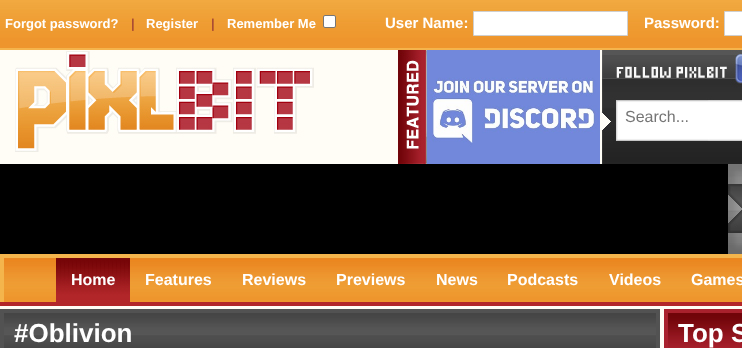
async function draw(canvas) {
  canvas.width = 742
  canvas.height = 348
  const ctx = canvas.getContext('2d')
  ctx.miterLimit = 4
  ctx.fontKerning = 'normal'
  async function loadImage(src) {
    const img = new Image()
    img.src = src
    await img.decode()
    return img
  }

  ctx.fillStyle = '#fff'
  ctx.fillRect(0, 0, 742, 348)
  ctx.drawImage(await loadImage('image0.png'), 0, 0, 742, 48)
  ctx.fillStyle = '#f5b44c'
  ctx.fillRect(0, 48, 742, 2)
  ctx.font = 'bold 13px Liberation Sans'
  ctx.fillStyle = '#fff'
  ctx.fillText('Forgot password?', 5, 28)
  ctx.fillStyle = '#aa4c33'
  ctx.fillText('|', 131, 28)
  ctx.fillStyle = '#fff'
  ctx.fillText('Register', 146, 28)
  ctx.fillStyle = '#aa4c33'
  ctx.fillText('|', 211, 28)
  ctx.fillStyle = '#fff'
  ctx.fillText('Remember Me', 227, 28)
  ctx.beginPath()
  ctx.roundRect(323.5, 15.5, 12, 12, 1.5)
  ctx.fill()
  ctx.strokeStyle = '#767676'
  ctx.stroke()
  ctx.font = 'bold 15px Liberation Sans'
  ctx.fillText('User Name:', 385, 28)
  ctx.beginPath()
  ctx.rect(473.5, 11.5, 154, 24)
  ctx.fill()
  ctx.strokeStyle = '#cfcfcf'
  ctx.stroke()
  ctx.fillText('Password:', 644, 28)
  ctx.beginPath()
  ctx.rect(724.5, 11.5, 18, 24)
  ctx.fill()
  ctx.stroke()
  ctx.fillStyle = '#fffdf6'
  ctx.fillRect(0, 50, 742, 259)
  ctx.drawImage(await loadImage('image1.png'), 15, 51, 299, 101)
  ctx.drawImage(await loadImage('image2.png'), 398, 50, 29, 114)
  ctx.drawImage(await loadImage('image3.png'), 427, 50, 173, 114)
  ctx.drawImage(await loadImage('image4.png'), 601, 50, 141, 114)
  ctx.font = '16px Liberation Sans'
  ctx.fillStyle = '#757575'
  ctx.fillText('Search...', 625, 122)
  ctx.fillStyle = '#000'
  ctx.fillRect(0, 164, 728, 90)
  ctx.drawImage(await loadImage('image5.png'), 728, 164, 14, 90)
  ctx.fillStyle = '#f4b54c'
  ctx.fillRect(0, 254, 742, 4)
  ctx.drawImage(await loadImage('image6.png'), 4, 258, 738, 44)
  ctx.fillRect(0, 258, 4, 44)
  ctx.drawImage(await loadImage('image7.png'), 56, 258, 74, 44)
  ctx.font = 'bold 16px Liberation Sans'
  ctx.fillStyle = '#fff'
  ctx.fillText('Home', 71, 285)
  ctx.fillText('Features', 145, 285)
  ctx.fillText('Reviews', 242, 285)
  ctx.fillText('Previews', 336, 285)
  ctx.fillText('News', 436, 285)
  ctx.fillText('Podcasts', 507, 285)
  ctx.fillText('Videos', 609, 285)
  ctx.fillText('Games', 691, 285)
  ctx.fillStyle = '#b22629'
  ctx.fillRect(0, 302, 742, 4)
  ctx.fillStyle = '#fffdf6'
  ctx.fillRect(660, 309, 4, 39)
  ctx.drawImage(await loadImage('image8.png'), 4, 313, 652, 35)
  ctx.strokeStyle = '#525252'
  ctx.lineWidth = 4
  ctx.strokeRect(2, 311, 656, 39)
  ctx.font = 'bold 26px Liberation Sans'
  ctx.fillStyle = '#fff'
  ctx.fillText('#Oblivion', 14, 342)
  ctx.drawImage(await loadImage('image9.png'), 668, 313, 74, 35)
  ctx.strokeStyle = '#a9212d'
  ctx.strokeRect(666, 311, 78, 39)
  ctx.fillText('Top S', 678, 342)
}

draw(document.querySelector('canvas'))
